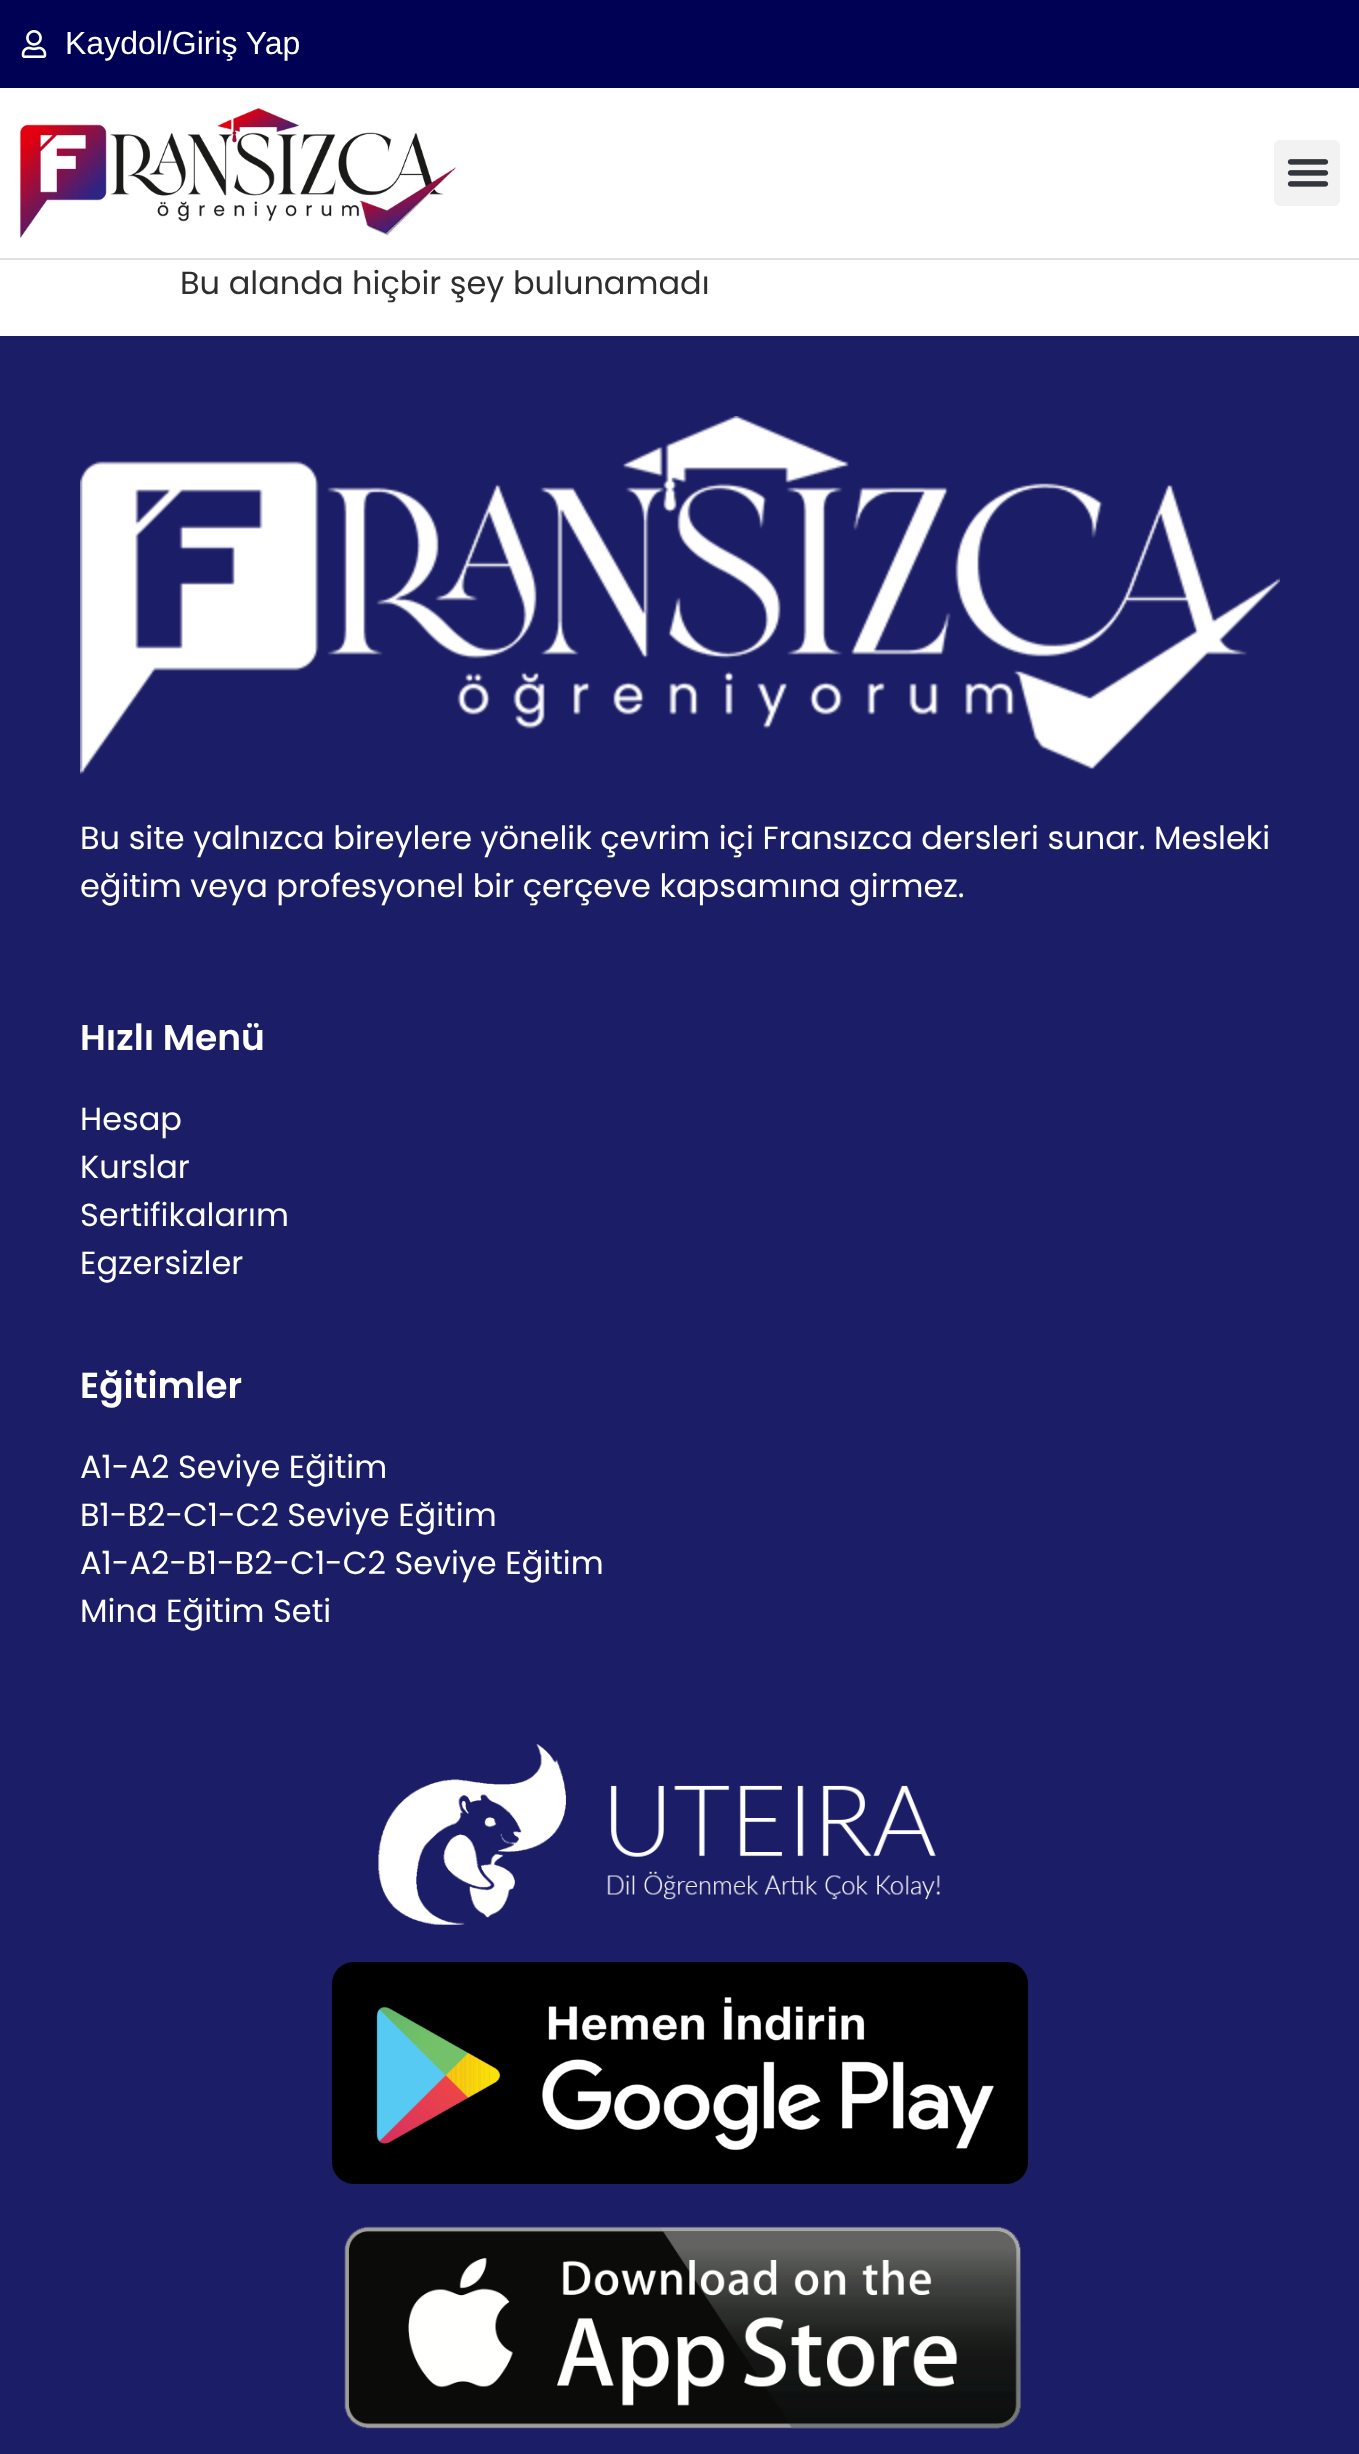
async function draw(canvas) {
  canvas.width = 1359
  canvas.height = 2454
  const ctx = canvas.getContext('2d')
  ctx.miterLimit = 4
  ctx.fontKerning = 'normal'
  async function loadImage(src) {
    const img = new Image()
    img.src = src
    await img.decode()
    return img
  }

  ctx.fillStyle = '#fff'
  ctx.fillRect(0, 0, 1359, 2454)
  ctx.fillStyle = '#000154'
  ctx.fillRect(0, 0, 1359, 88)
  ctx.drawImage(await loadImage('image0.png'), 21, 30, 26, 28)
  ctx.font = '32px Liberation Sans'
  ctx.fillStyle = '#fff'
  ctx.fillText('Kaydol/Giriş Yap', 65, 54)
  ctx.fillStyle = '#e0e0e0'
  ctx.fillRect(0, 258, 1359, 2)
  ctx.drawImage(await loadImage('image1.png'), 20, 108, 436, 130)
  ctx.fillStyle = '#f2f2f2'
  ctx.beginPath()
  ctx.roundRect(1274, 140, 66, 66, 6)
  ctx.fill()
  ctx.drawImage(await loadImage('image2.png'), 1287, 159, 42, 28)
  ctx.font = '32px Poppins'
  ctx.fillStyle = '#2e2e2e'
  ctx.fillText('Bu alanda hiçbir şey bulunamadı', 180, 294)
  ctx.fillStyle = '#1c1d67'
  ctx.fillRect(0, 336, 1359, 2118)
  ctx.drawImage(await loadImage('image3.png'), 80, 416, 1200, 358)
  ctx.fillStyle = '#fff'
  ctx.fillText('Bu site yalnızca bireylere yönelik çevrim içi Fransızca dersleri sunar. Mesleki', 80, 849)
  ctx.fillText('eğitim veya profesyonel bir çerçeve kapsamına girmez.', 80, 897)
  ctx.font = '600 36px Poppins'
  ctx.fillText('Hızlı Menü', 80, 1050)
  ctx.font = '32px Poppins'
  ctx.fillText('Hesap', 80, 1130)
  ctx.fillText('Kurslar', 80, 1178)
  ctx.fillText('Sertifikalarım', 80, 1226)
  ctx.fillText('Egzersizler', 80, 1274)
  ctx.font = '600 36px Poppins'
  ctx.fillText('Eğitimler', 80, 1398)
  ctx.font = '32px Poppins'
  ctx.fillText('A1-A2 Seviye Eğitim', 80, 1478)
  ctx.fillText('B1-B2-C1-C2 Seviye Eğitim', 80, 1526)
  ctx.fillText('A1-A2-B1-B2-C1-C2 Seviye Eğitim', 80, 1574)
  ctx.fillText('Mina Eğitim Seti', 80, 1622)
  ctx.drawImage(await loadImage('image4.png'), 378, 1744, 563, 181)
  ctx.drawImage(await loadImage('image5.png'), 332, 1962, 696, 222)
  ctx.drawImage(await loadImage('image6.png'), 344, 2226, 677, 203)
}

draw(document.querySelector('canvas'))
